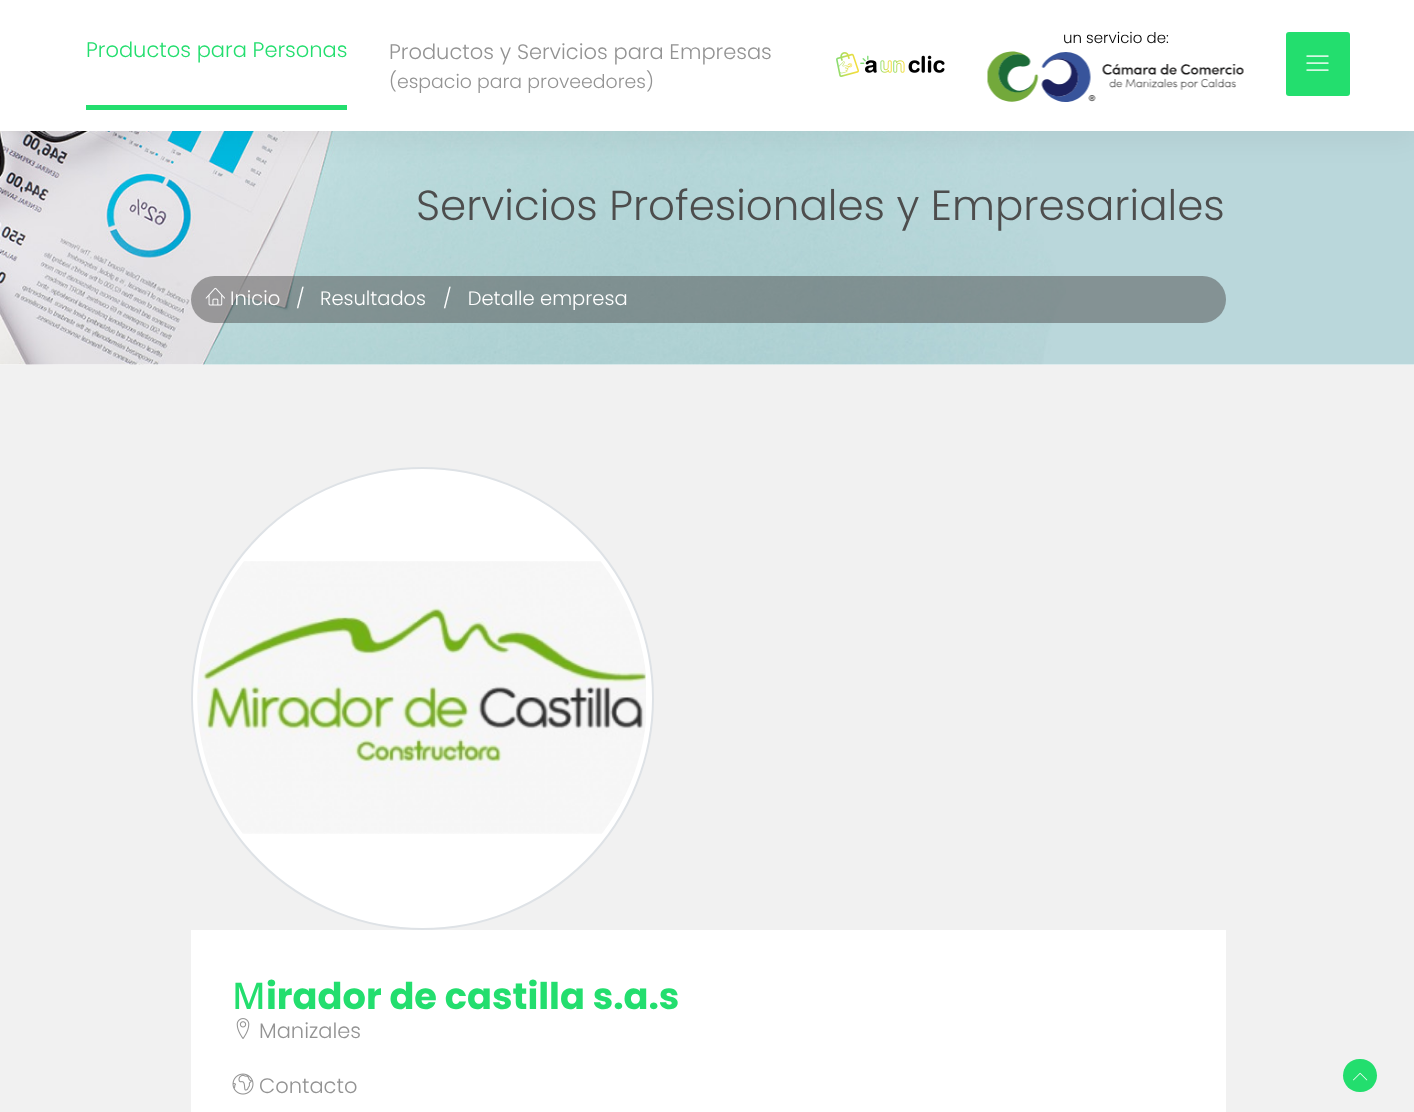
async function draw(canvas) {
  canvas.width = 1414
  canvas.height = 1112
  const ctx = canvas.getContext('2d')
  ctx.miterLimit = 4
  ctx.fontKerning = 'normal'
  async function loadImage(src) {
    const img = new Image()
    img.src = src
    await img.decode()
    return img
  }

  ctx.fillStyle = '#f1f1f1'
  ctx.fillRect(0, 0, 1414, 1112)
  ctx.fillStyle = '#fff'
  ctx.fillRect(0, 364, 1414, 1)
  ctx.drawImage(await loadImage('image3.png'), 0, 131, 1414, 234)
  ctx.fillStyle = '#0000000d'
  ctx.filter = 'blur(15px)'
  ctx.beginPath()
  ctx.rect(0, 8, 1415, 130)
  ctx.fill()
  ctx.filter = 'none'
  ctx.fillStyle = '#fff'
  ctx.fillRect(0, 0, 1414, 131)
  ctx.fillStyle = '#23de6e'
  ctx.fillRect(86, 105, 261, 5)
  ctx.font = '300 21px Poppins'
  ctx.fillText('Productos para Personas', 86, 57)
  ctx.fillStyle = '#939393'
  ctx.fillText('Productos y Servicios para Empresas', 389, 59)
  ctx.font = '300 18.9px Poppins'
  ctx.fillText('(espacio para proveedores)', 389, 88)
  ctx.font = '300 15px Poppins'
  ctx.fillStyle = '#000'
  ctx.fillText('un servicio de:', 1063, 43)
  ctx.drawImage(await loadImage('image0.png'), 987, 51, 257, 51)
  ctx.drawImage(await loadImage('image1.png'), 836, 52, 109, 25)
  ctx.fillStyle = '#23de6e'
  ctx.beginPath()
  ctx.roundRect(1286, 32, 64, 64, 3)
  ctx.fill()
  ctx.drawImage(await loadImage('image2.png'), 1306, 55, 23, 16)
  ctx.font = '300 42px Poppins'
  ctx.fillStyle = '#4d4d4d'
  ctx.fillText('Servicios Profesionales y Empresariales', 416, 220)
  ctx.fillStyle = '#4d4d4d80'
  ctx.beginPath()
  ctx.roundRect(191, 276, 1035, 47, 23.5)
  ctx.fill()
  ctx.drawImage(await loadImage('image4.png'), 205, 287, 20, 19)
  ctx.font = '300 19.5px Poppins'
  ctx.fillStyle = '#fff'
  ctx.fillText('Inicio', 230, 305)
  ctx.fillText('/', 296, 305)
  ctx.fillText('Resultados', 320, 305)
  ctx.fillText('/   Detalle empresa', 443, 305)
  ctx.beginPath()
  ctx.arc(422.5, 698.5, 230.5, 0, 2 * Math.PI)
  ctx.fill()
  ctx.strokeStyle = '#dee2e6'
  ctx.lineWidth = 2
  ctx.stroke()
  ctx.drawImage(await loadImage('image5.png'), 197, 561, 449, 273)
  ctx.fillRect(191, 930, 1035, 182)
  ctx.font = '500 36.75px Noto Sans'
  ctx.fillStyle = '#23de6e'
  ctx.fillText('M', 232, 1009)
  ctx.font = 'bold 36.75px Poppins'
  ctx.fillText('irador de castilla s.a.s', 266, 1009)
  ctx.drawImage(await loadImage('image6.png'), 236, 1018, 14, 21)
  ctx.font = '300 21px Poppins'
  ctx.fillStyle = '#939393'
  ctx.fillText('Manizales', 259, 1038)
  ctx.drawImage(await loadImage('image7.png'), 232, 1073, 22, 22)
  ctx.fillText('Contacto', 259, 1093)
  ctx.fillStyle = '#23de6e'
  ctx.beginPath()
  ctx.roundRect(1343, 1059, 34, 33, 16.5)
  ctx.fill()
  ctx.drawImage(await loadImage('image8.png'), 1353, 1072, 15, 9)
}

draw(document.querySelector('canvas'))
